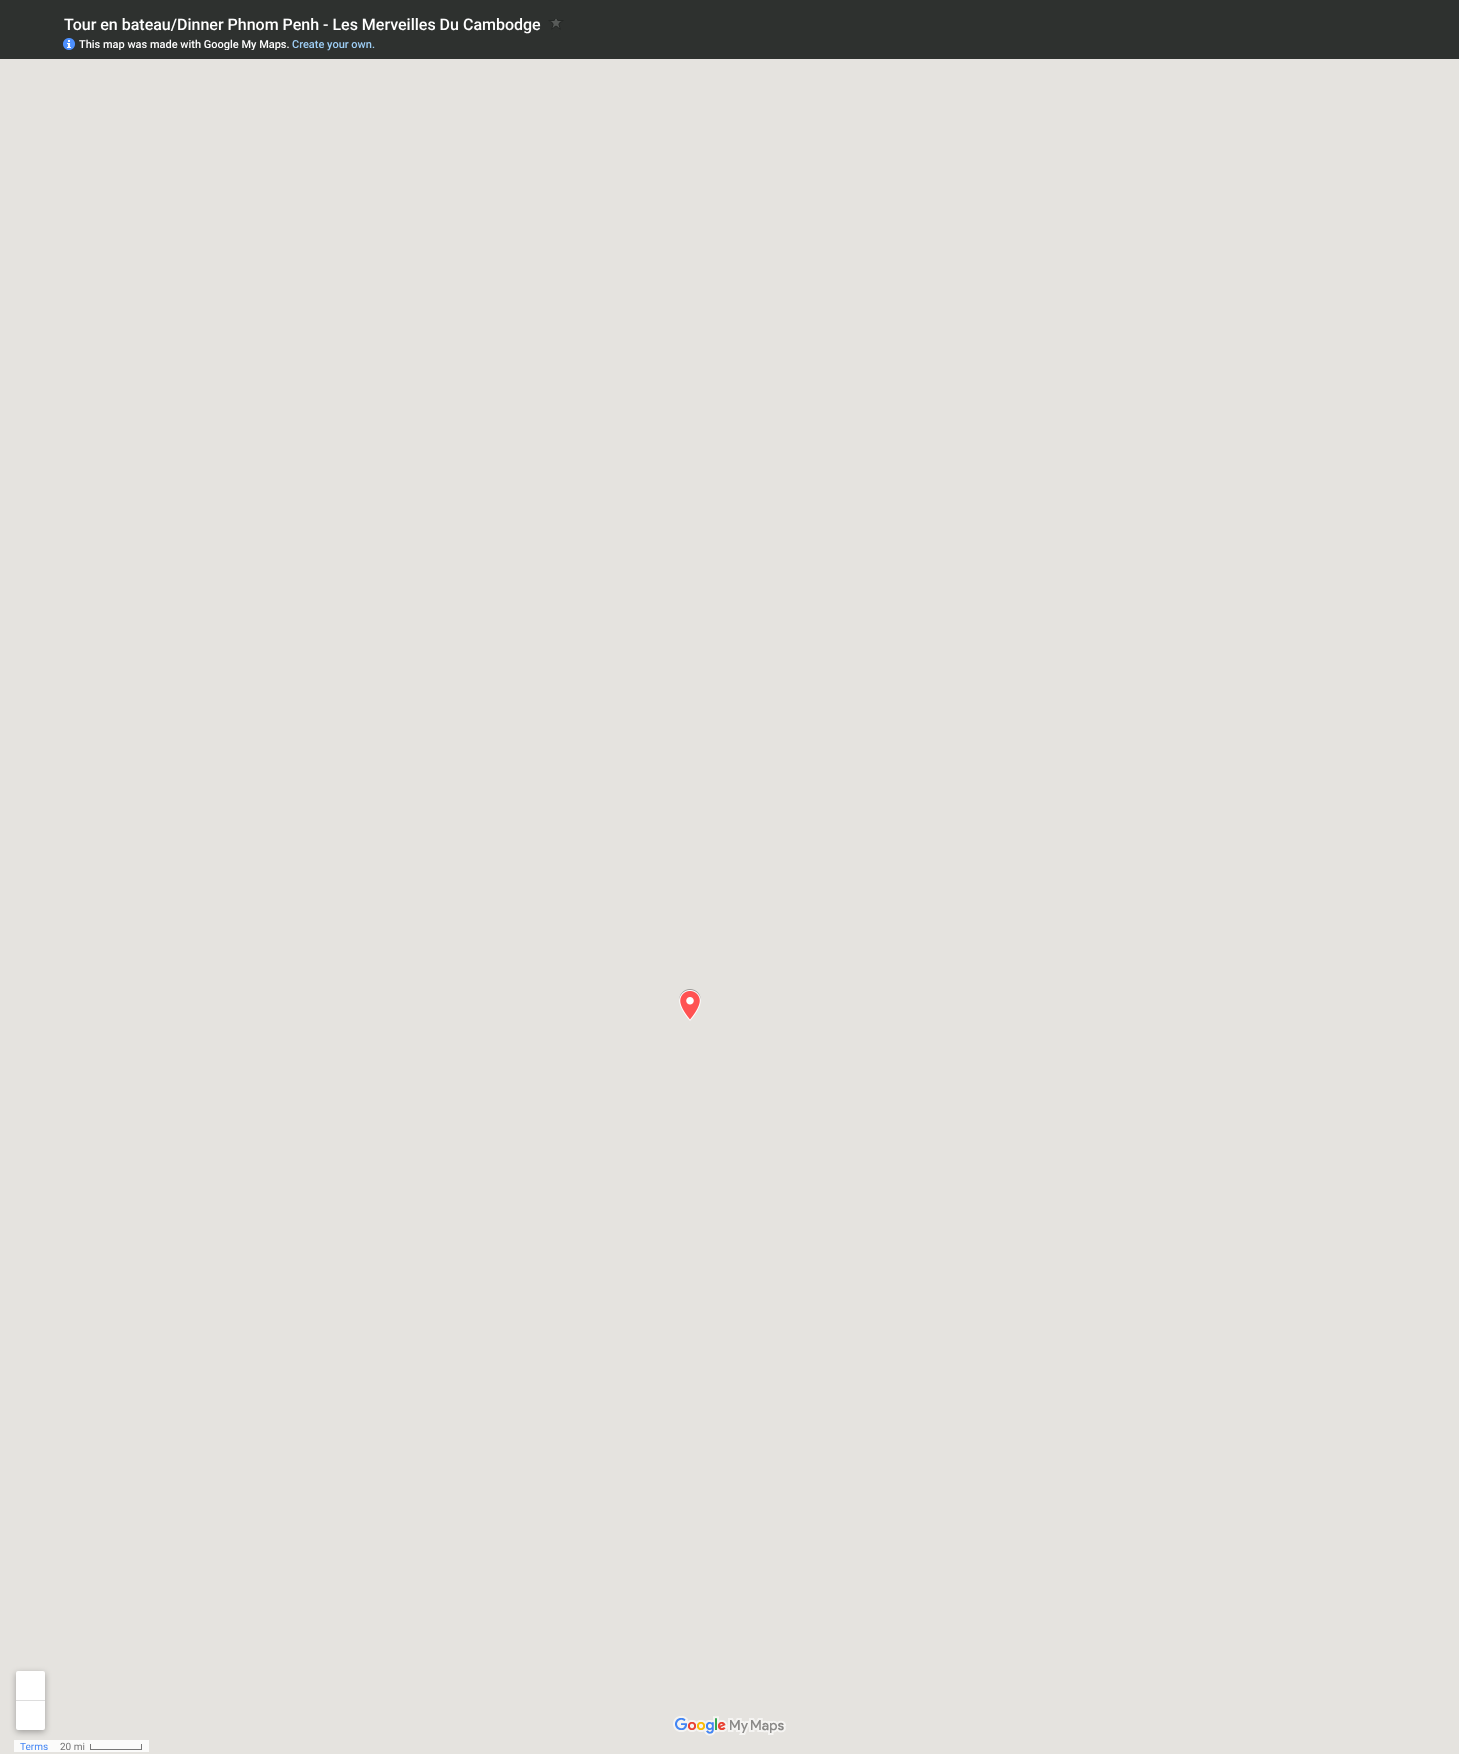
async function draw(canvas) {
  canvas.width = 1459
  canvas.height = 1754
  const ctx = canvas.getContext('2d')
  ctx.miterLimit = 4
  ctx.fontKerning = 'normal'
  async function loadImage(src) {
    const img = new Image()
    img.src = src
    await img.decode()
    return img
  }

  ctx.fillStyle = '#e5e3df'
  ctx.fillRect(0, 0, 1459, 1754)
  ctx.fillStyle = '#2e312f'
  ctx.fillRect(0, 0, 1459, 59)
  ctx.font = '500 16px Roboto'
  ctx.fillStyle = '#fff'
  ctx.fillText('Tour en bateau/Dinner Phnom Penh - Les Merveilles Du Cambodge', 64, 30)
  ctx.drawImage(await loadImage('image0.png'), 548, 19, 16, 11)
  ctx.drawImage(await loadImage('image1.png'), 63, 38, 12, 12)
  ctx.save()
  ctx.beginPath()
  ctx.rect(20, 11, 1302, 39)
  ctx.clip()
  ctx.font = '500 11px Roboto'
  ctx.fillText('This map was made with Google My Maps.', 79, 48)
  ctx.restore()
  ctx.font = '500 11px Roboto'
  ctx.fillStyle = '#9ecef5'
  ctx.fillText('Create your own.', 292, 48)
  ctx.drawImage(await loadImage('image2.png'), 679, 989, 22, 32)
  ctx.fillStyle = '#0000004d'
  ctx.filter = 'blur(3px)'
  ctx.beginPath()
  ctx.roundRect(16, 1673, 29, 59, 2)
  ctx.fill()
  ctx.filter = 'none'
  ctx.fillStyle = '#fff'
  ctx.beginPath()
  ctx.roundRect(16, 1671, 29, 59, 2)
  ctx.fill()
  ctx.fillStyle = '#ddd'
  ctx.fillRect(16, 1700, 29, 1)
  ctx.drawImage(await loadImage('image3.png'), 673, 1716, 113, 20)
  ctx.fillStyle = '#fbfbfa'
  ctx.fillRect(14, 1740, 135, 12)
  ctx.font = '10px Roboto'
  ctx.fillStyle = '#4285f4'
  ctx.fillText('Terms', 20, 1750)
  ctx.fillStyle = '#777'
  ctx.fillText('20 mi', 60, 1750)
  ctx.fillRect(90, 1749, 52, 1)
  ctx.fillRect(90, 1744, 1, 6)
  ctx.fillRect(141, 1744, 1, 6)
}

draw(document.querySelector('canvas'))
